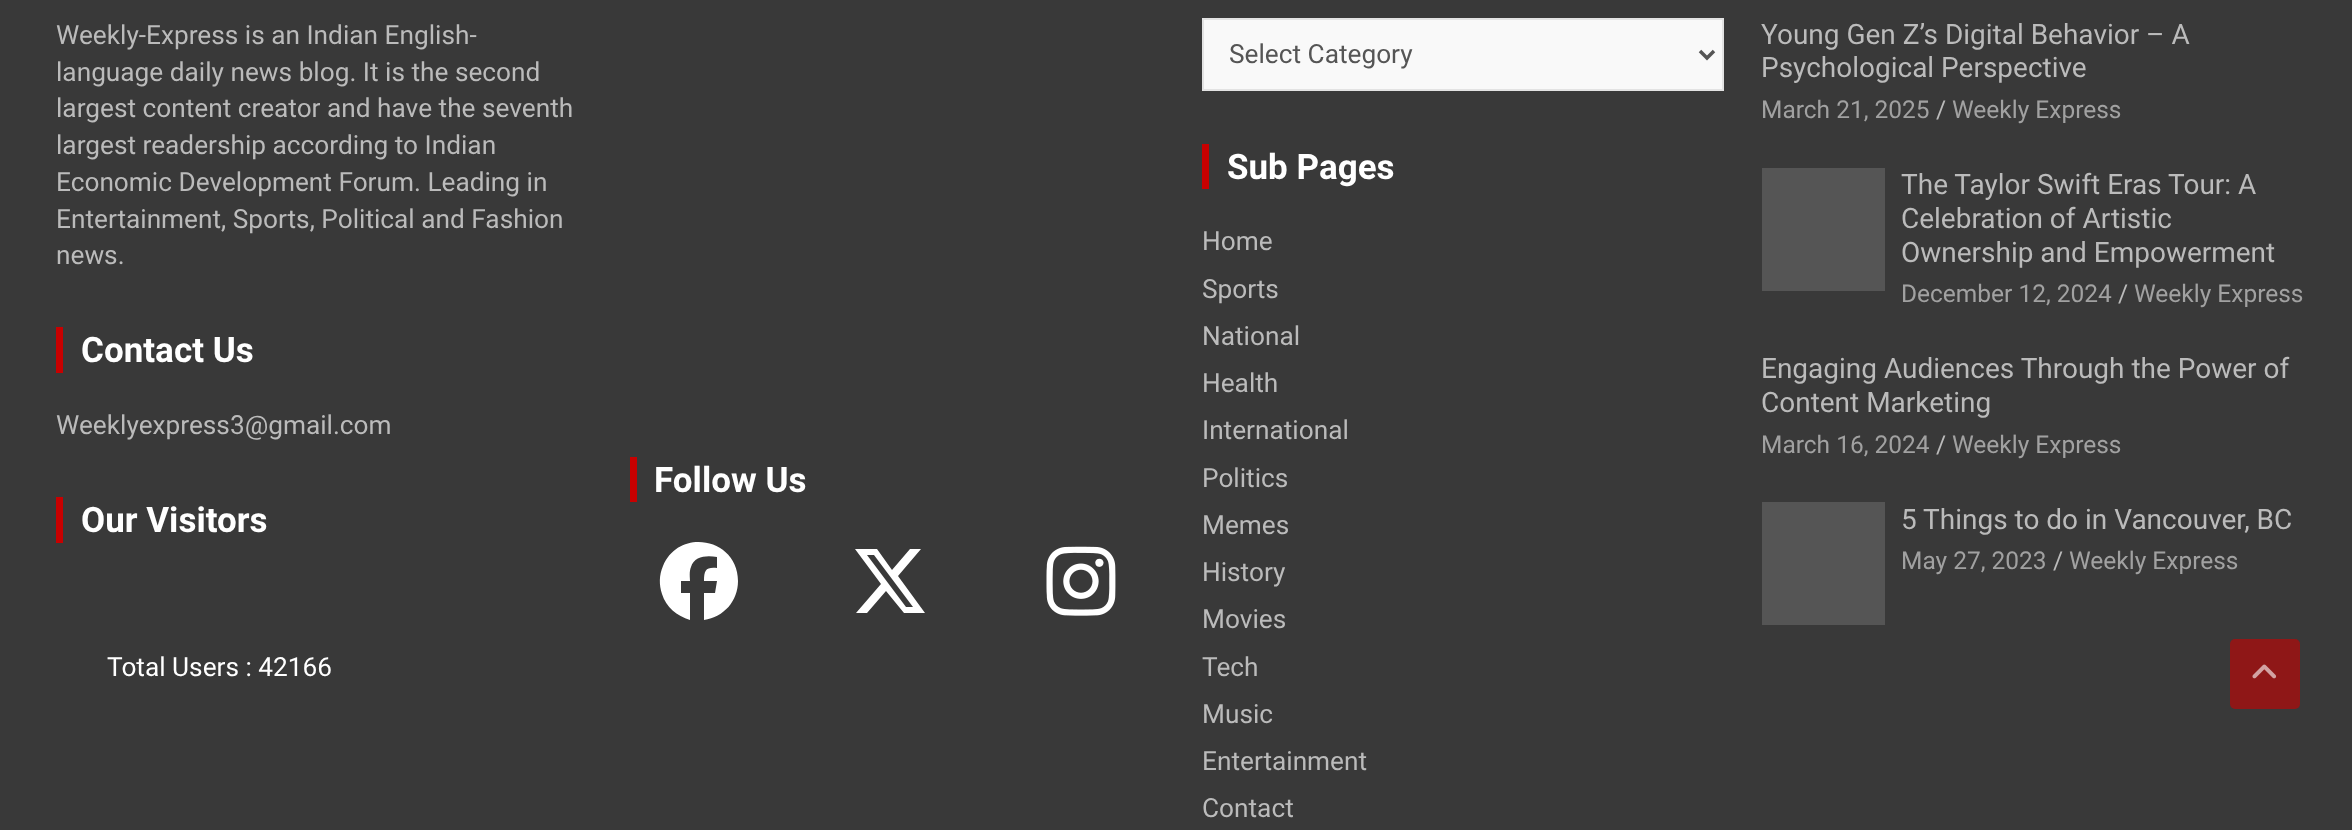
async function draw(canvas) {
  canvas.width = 2352
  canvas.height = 830
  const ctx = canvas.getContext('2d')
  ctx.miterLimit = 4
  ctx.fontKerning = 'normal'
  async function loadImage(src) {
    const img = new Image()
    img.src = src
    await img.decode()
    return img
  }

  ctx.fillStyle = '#393939'
  ctx.fillRect(0, 0, 2352, 830)
  ctx.font = '26.25px Roboto'
  ctx.fillStyle = '#bbb'
  ctx.fillText('Weekly-Express is an Indian English-', 56, 44)
  ctx.fillText('language daily news blog. It is the second', 56, 81)
  ctx.fillText('largest content creator and have the seventh', 56, 117)
  ctx.fillText('largest readership according to Indian', 56, 154)
  ctx.fillText('Economic Development Forum. Leading in', 56, 191)
  ctx.fillText('Entertainment, Sports, Political and Fashion', 56, 228)
  ctx.fillText('news.', 56, 264)
  ctx.fillStyle = '#c80000'
  ctx.fillRect(56, 327, 7, 46)
  ctx.font = 'bold 35px Roboto'
  ctx.fillStyle = '#fff'
  ctx.fillText('Contact Us', 81, 362)
  ctx.font = '26.25px Roboto'
  ctx.fillStyle = '#bbb'
  ctx.fillText('Weeklyexpress3@gmail.com', 56, 434)
  ctx.fillStyle = '#c80000'
  ctx.fillRect(56, 497, 7, 46)
  ctx.font = 'bold 35px Roboto'
  ctx.fillStyle = '#fff'
  ctx.fillText('Our Visitors', 81, 532)
  ctx.font = '26.25px Roboto'
  ctx.fillText('Total Users : 42166', 107, 676)
  ctx.fillStyle = '#c80000'
  ctx.fillRect(630, 457, 7, 45)
  ctx.font = 'bold 35px Roboto'
  ctx.fillStyle = '#fff'
  ctx.fillText('Follow Us', 654, 492)
  ctx.beginPath()
  ctx.moveTo(738, 581)
  ctx.bezierCurveTo(738, 538, 679, 527, 663, 566)
  ctx.bezierCurveTo(659, 575, 659, 585, 662, 594)
  ctx.bezierCurveTo(666, 607, 677, 616, 690, 620)
  ctx.lineTo(690, 593)
  ctx.lineTo(681, 593)
  ctx.lineTo(681, 581)
  ctx.lineTo(690, 581)
  ctx.bezierCurveTo(690, 577, 689, 572, 691, 567)
  ctx.bezierCurveTo(694, 556, 707, 555, 717, 557)
  ctx.lineTo(717, 568)
  ctx.bezierCurveTo(706, 567, 704, 570, 704, 581)
  ctx.lineTo(717, 581)
  ctx.lineTo(715, 593)
  ctx.lineTo(704, 593)
  ctx.lineTo(704, 620)
  ctx.bezierCurveTo(724, 617, 738, 601, 738, 581)
  ctx.closePath()
  ctx.fill()
  ctx.beginPath()
  ctx.moveTo(910, 549)
  ctx.lineTo(921, 549)
  ctx.lineTo(910, 549)
  ctx.lineTo(921, 549)
  ctx.lineTo(898, 576)
  ctx.lineTo(925, 613)
  ctx.lineTo(904, 613)
  ctx.lineTo(886, 591)
  ctx.lineTo(867, 613)
  ctx.lineTo(856, 613)
  ctx.lineTo(881, 584)
  ctx.lineTo(855, 549)
  ctx.lineTo(877, 549)
  ctx.lineTo(892, 570)
  ctx.closePath()
  ctx.moveTo(906, 607)
  ctx.lineTo(913, 607)
  ctx.lineTo(906, 607)
  ctx.lineTo(913, 607)
  ctx.lineTo(874, 555)
  ctx.lineTo(867, 555)
  ctx.closePath()
  ctx.fill()
  ctx.drawImage(await loadImage('image0.png'), 1046, 546, 70, 70)
  ctx.fillStyle = '#f9f9f9'
  ctx.beginPath()
  ctx.rect(1203, 19, 520, 71)
  ctx.fill()
  ctx.strokeStyle = '#e3e3e3'
  ctx.lineWidth = 2
  ctx.stroke()
  ctx.beginPath()
  ctx.moveTo(1700, 51)
  ctx.lineTo(1707, 58)
  ctx.lineTo(1714, 51)
  ctx.strokeStyle = '#555'
  ctx.lineWidth = 3.5
  ctx.stroke()
  ctx.font = '26.25px Roboto'
  ctx.fillStyle = '#555'
  ctx.fillText('Select Category', 1229, 63)
  ctx.fillStyle = '#c80000'
  ctx.fillRect(1202, 144, 7, 45)
  ctx.font = 'bold 35px Roboto'
  ctx.fillStyle = '#fff'
  ctx.fillText('Sub Pages', 1227, 179)
  ctx.font = '26.25px Roboto'
  ctx.fillStyle = '#bbb'
  ctx.fillText('Home', 1202, 250)
  ctx.fillText('Sports', 1202, 298)
  ctx.fillText('National', 1202, 345)
  ctx.fillText('Health', 1202, 392)
  ctx.fillText('International', 1202, 439)
  ctx.fillText('Politics', 1202, 487)
  ctx.fillText('Memes', 1202, 534)
  ctx.fillText('History', 1202, 581)
  ctx.fillText('Movies', 1202, 628)
  ctx.fillText('Tech', 1202, 676)
  ctx.fillText('Music', 1202, 723)
  ctx.fillText('Entertainment', 1202, 770)
  ctx.fillText('Contact', 1202, 817)
  ctx.font = '28px Roboto'
  ctx.fillText('Young Gen Z’s Digital Behavior – A', 1761, 44)
  ctx.fillText('Psychological Perspective', 1761, 77)
  ctx.font = '24.5px Roboto'
  ctx.fillStyle = '#a1a1a1'
  ctx.fillText('March 21, 2025', 1761, 118)
  ctx.fillStyle = '#bbb'
  ctx.fillText('/', 1936, 118)
  ctx.fillStyle = '#a1a1a1'
  ctx.fillText('Weekly Express', 1952, 118)
  ctx.fillStyle = '#555'
  ctx.fillRect(1762, 168, 123, 123)
  ctx.font = '28px Roboto'
  ctx.fillStyle = '#bbb'
  ctx.fillText('The Taylor Swift Eras Tour: A', 1901, 194)
  ctx.fillText('Celebration of Artistic', 1901, 228)
  ctx.fillText('Ownership and Empowerment', 1901, 262)
  ctx.font = '24.5px Roboto'
  ctx.fillStyle = '#a1a1a1'
  ctx.fillText('December 12, 2024', 1901, 302)
  ctx.fillStyle = '#bbb'
  ctx.fillText('/', 2118, 302)
  ctx.fillStyle = '#a1a1a1'
  ctx.fillText('Weekly Express', 2134, 302)
  ctx.font = '28px Roboto'
  ctx.fillStyle = '#bbb'
  ctx.fillText('Engaging Audiences Through the Power of', 1761, 378)
  ctx.fillText('Content Marketing', 1761, 412)
  ctx.font = '24.5px Roboto'
  ctx.fillStyle = '#a1a1a1'
  ctx.fillText('March 16, 2024', 1761, 453)
  ctx.fillStyle = '#bbb'
  ctx.fillText('/', 1936, 453)
  ctx.fillStyle = '#a1a1a1'
  ctx.fillText('Weekly Express', 1952, 453)
  ctx.fillStyle = '#555'
  ctx.fillRect(1762, 502, 123, 123)
  ctx.font = '28px Roboto'
  ctx.fillStyle = '#bbb'
  ctx.fillText('5 Things to do in Vancouver, BC', 1901, 529)
  ctx.font = '24.5px Roboto'
  ctx.fillStyle = '#a1a1a1'
  ctx.fillText('May 27, 2023', 1901, 569)
  ctx.fillStyle = '#bbb'
  ctx.fillText('/', 2053, 569)
  ctx.fillStyle = '#a1a1a1'
  ctx.fillText('Weekly Express', 2069, 569)
  ctx.fillStyle = '#8f1717'
  ctx.beginPath()
  ctx.roundRect(2230, 639, 70, 70, 5)
  ctx.fill()
  ctx.drawImage(await loadImage('image1.png'), 2252, 664, 25, 15)
}

draw(document.querySelector('canvas'))
